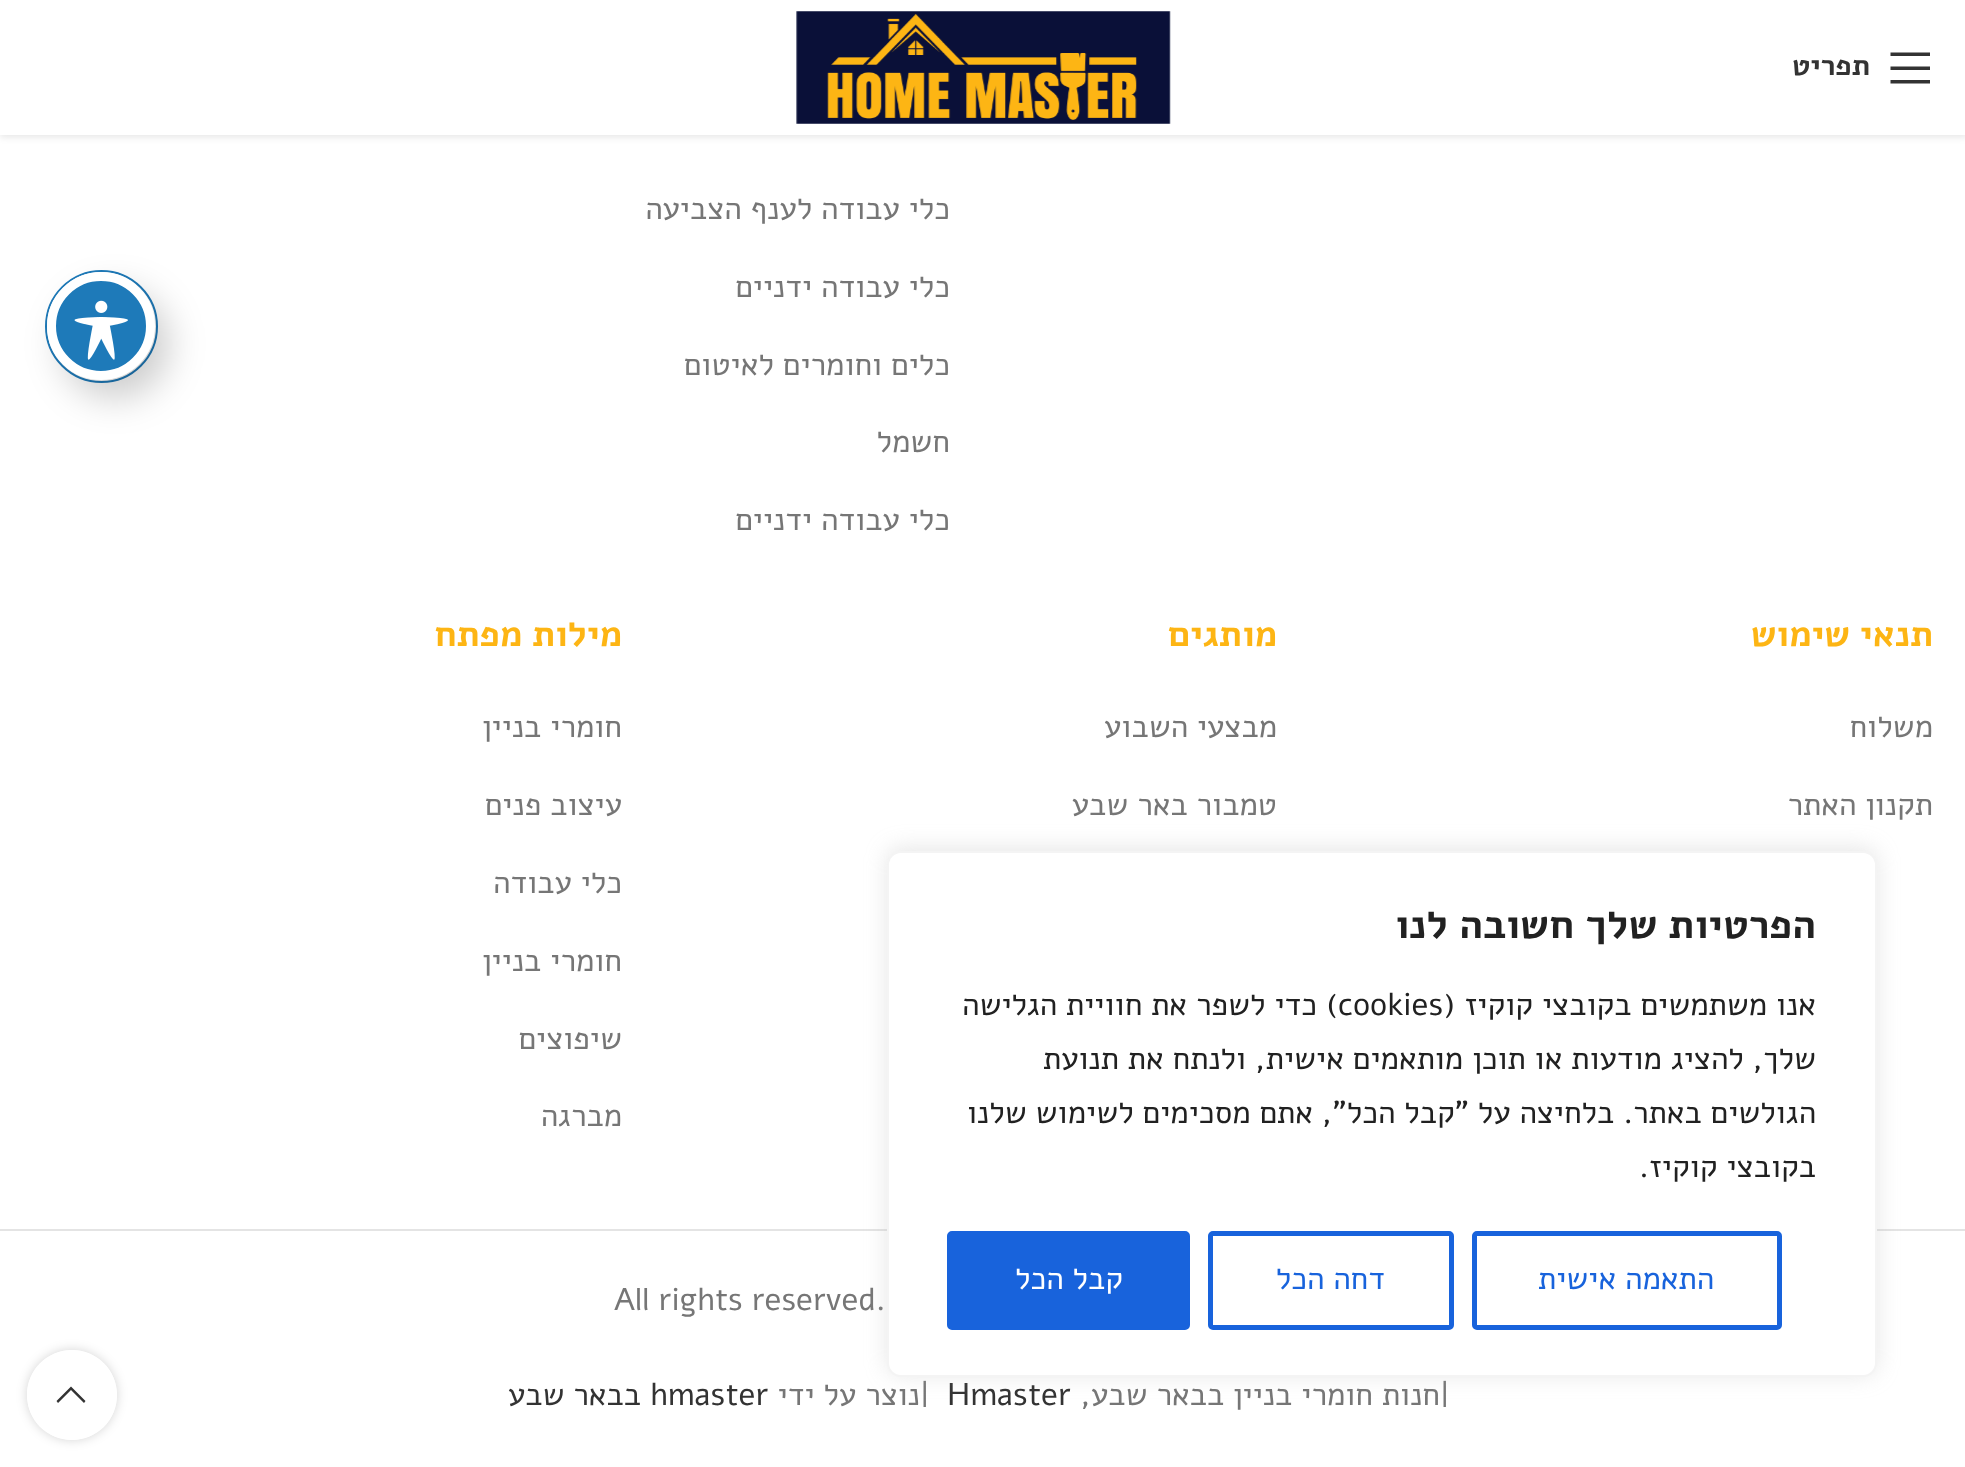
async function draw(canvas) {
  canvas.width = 1965
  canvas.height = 1467
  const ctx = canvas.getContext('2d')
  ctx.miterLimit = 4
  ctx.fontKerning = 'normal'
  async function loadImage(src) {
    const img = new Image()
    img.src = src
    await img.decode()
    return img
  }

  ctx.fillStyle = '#fff'
  ctx.fillRect(0, 0, 1965, 1467)
  ctx.fillStyle = '#0000001a'
  ctx.filter = 'blur(3.5px)'
  ctx.beginPath()
  ctx.rect(0, 2, 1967, 135)
  ctx.fill()
  ctx.filter = 'none'
  ctx.fillStyle = '#fff'
  ctx.fillRect(0, 0, 1965, 135)
  ctx.fillStyle = '#333'
  ctx.beginPath()
  ctx.moveTo(1890.5, 56)
  ctx.lineTo(1930, 56)
  ctx.lineTo(1930, 52.5)
  ctx.lineTo(1890.5, 52.5)
  ctx.closePath()
  ctx.moveTo(1890.5, 70)
  ctx.lineTo(1930, 70)
  ctx.lineTo(1930, 66.5)
  ctx.lineTo(1890.5, 66.5)
  ctx.closePath()
  ctx.moveTo(1890.5, 83.5)
  ctx.lineTo(1930, 83.5)
  ctx.lineTo(1930, 80)
  ctx.lineTo(1890.5, 80)
  ctx.closePath()
  ctx.fill()
  ctx.direction = 'rtl'
  ctx.font = 'bold 29px Alef'
  ctx.fillText('תפריט', 1870, 75)
  ctx.drawImage(await loadImage('image0.png'), 796, 11, 375, 113)
  ctx.font = '31.5px Alef'
  ctx.fillStyle = '#767676'
  ctx.fillText('כלי עבודה לענף הצביעה', 950, 219)
  ctx.fillText('כלי עבודה ידניים', 950, 297)
  ctx.fillText('כלים וחומרים לאיטום', 950, 375)
  ctx.fillText('חשמל', 950, 452)
  ctx.fillText('כלי עבודה ידניים', 950, 530)
  ctx.font = 'bold 36px Alef'
  ctx.fillStyle = '#fdb514'
  ctx.fillText('תנאי שימוש', 1933, 646)
  ctx.font = '31.5px Alef'
  ctx.fillStyle = '#767676'
  ctx.fillText('משלוח', 1933, 737)
  ctx.fillText('תקנון האתר', 1933, 815)
  ctx.font = 'bold 36px Alef'
  ctx.fillStyle = '#fdb514'
  ctx.fillText('מותגים', 1277, 646)
  ctx.font = '31.5px Alef'
  ctx.fillStyle = '#767676'
  ctx.fillText('מבצעי השבוע', 1277, 737)
  ctx.fillText('טמבור באר שבע', 1277, 815)
  ctx.font = 'bold 36px Alef'
  ctx.fillStyle = '#fdb514'
  ctx.fillText('מילות מפתח', 622, 646)
  ctx.font = '31.5px Alef'
  ctx.fillStyle = '#767676'
  ctx.fillText('חומרי בניין', 622, 737)
  ctx.fillText('עיצוב פנים', 622, 815)
  ctx.fillText('כלי עבודה', 622, 893)
  ctx.fillText('חומרי בניין', 622, 971)
  ctx.fillText('שיפוצים', 622, 1049)
  ctx.fillText('מברגה', 622, 1126)
  ctx.fillStyle = '#e4e4e4'
  ctx.fillRect(0, 1229, 1965, 2)
  ctx.direction = 'ltr'
  ctx.fillStyle = '#767676'
  ctx.fillText('All rights reserved.', 614, 1310)
  ctx.fillText('|', 1440, 1405)
  ctx.direction = 'rtl'
  ctx.fillText('חנות חומרי בניין בבאר שבע,', 1440, 1405)
  ctx.direction = 'ltr'
  ctx.fillStyle = '#333'
  ctx.fillText('Hmaster', 947, 1405)
  ctx.fillStyle = '#767676'
  ctx.fillText('|', 920, 1405)
  ctx.direction = 'rtl'
  ctx.fillText('נוצר על ידי', 920, 1405)
  ctx.direction = 'ltr'
  ctx.fillStyle = '#333'
  ctx.fillText('hmaster', 650, 1405)
  ctx.direction = 'rtl'
  ctx.fillText('בבאר שבע', 641, 1405)
  ctx.beginPath()
  ctx.arc(101.5, 326.5, 55.5, 0, 2 * Math.PI)
  ctx.strokeStyle = '#1e7ab9'
  ctx.lineWidth = 2
  ctx.stroke()
  ctx.fillStyle = '#00000033'
  ctx.filter = 'blur(18px)'
  ctx.beginPath()
  ctx.roundRect(61, 290, 108, 108, 54)
  ctx.fill()
  ctx.filter = 'none'
  ctx.fillStyle = '#1e7ab9'
  ctx.beginPath()
  ctx.arc(101, 326, 49.5, 0, 2 * Math.PI)
  ctx.fill()
  ctx.strokeStyle = '#fff'
  ctx.lineWidth = 9
  ctx.stroke()
  ctx.drawImage(await loadImage('image1.png'), 74, 300, 54, 60)
  ctx.fillStyle = '#acabab4d'
  ctx.filter = 'blur(11px)'
  ctx.beginPath()
  ctx.roundRect(887, 848, 990, 527, 14)
  ctx.fill()
  ctx.filter = 'none'
  ctx.fillStyle = '#fff'
  ctx.beginPath()
  ctx.roundRect(888, 852, 988, 524, 13)
  ctx.fill()
  ctx.strokeStyle = '#f4f4f4'
  ctx.lineWidth = 2
  ctx.stroke()
  ctx.font = 'bold 40.5px Alef'
  ctx.fillStyle = '#212121'
  ctx.fillText('הפרטיות שלך חשובה לנו', 1816, 938)
  ctx.font = '31.5px Alef'
  ctx.fillText('אנו משתמשים בקובצי קוקיז (', 1816, 1015)
  ctx.direction = 'ltr'
  ctx.fillText('cookies', 1338, 1015)
  ctx.direction = 'rtl'
  ctx.fillText(') כדי לשפר את חוויית הגלישה', 1338, 1015)
  ctx.fillText('שלך, להציג מודעות או תוכן מותאמים אישית, ולנתח את תנועת', 1816, 1069)
  ctx.fillText('הגולשים באתר. בלחיצה על "קבל הכל", אתם מסכימים לשימוש שלנו', 1816, 1123)
  ctx.fillText('בקובצי קוקיז.', 1816, 1177)
  ctx.beginPath()
  ctx.roundRect(1474.5, 1233.5, 305, 94, 2.5)
  ctx.strokeStyle = '#1863dc'
  ctx.lineWidth = 5
  ctx.stroke()
  ctx.fillStyle = '#1863dc'
  ctx.fillText('התאמה אישית', 1714, 1289)
  ctx.beginPath()
  ctx.roundRect(1210.5, 1233.5, 241, 94, 2.5)
  ctx.stroke()
  ctx.fillText('דחה הכל', 1385, 1289)
  ctx.beginPath()
  ctx.roundRect(949.5, 1233.5, 238, 94, 2.5)
  ctx.fill()
  ctx.stroke()
  ctx.fillStyle = '#fff'
  ctx.fillText('קבל הכל', 1123, 1289)
  ctx.save()
  ctx.beginPath()
  ctx.moveTo(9, 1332)
  ctx.lineTo(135, 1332)
  ctx.lineTo(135, 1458)
  ctx.lineTo(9, 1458)
  ctx.closePath()
  ctx.moveTo(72, 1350)
  ctx.bezierCurveTo(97, 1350, 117, 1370, 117, 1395)
  ctx.bezierCurveTo(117, 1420, 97, 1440, 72, 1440)
  ctx.bezierCurveTo(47, 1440, 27, 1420, 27, 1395)
  ctx.bezierCurveTo(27, 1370, 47, 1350, 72, 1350)
  ctx.closePath()
  ctx.clip('evenodd')
  ctx.fillStyle = '#0000002b'
  ctx.filter = 'blur(5.5px)'
  ctx.beginPath()
  ctx.roundRect(27, 1350, 90, 90, 45)
  ctx.fill()
  ctx.filter = 'none'
  ctx.restore()
  ctx.fillStyle = '#ffffffe6'
  ctx.beginPath()
  ctx.arc(72, 1395, 45, 0, 2 * Math.PI)
  ctx.fill()
  ctx.fillStyle = '#333'
  ctx.beginPath()
  ctx.moveTo(84, 1403)
  ctx.lineTo(85.5, 1401)
  ctx.lineTo(71, 1386.5)
  ctx.lineTo(56.5, 1401)
  ctx.lineTo(58, 1403)
  ctx.lineTo(71, 1390)
  ctx.closePath()
  ctx.fill()
}

draw(document.querySelector('canvas'))
